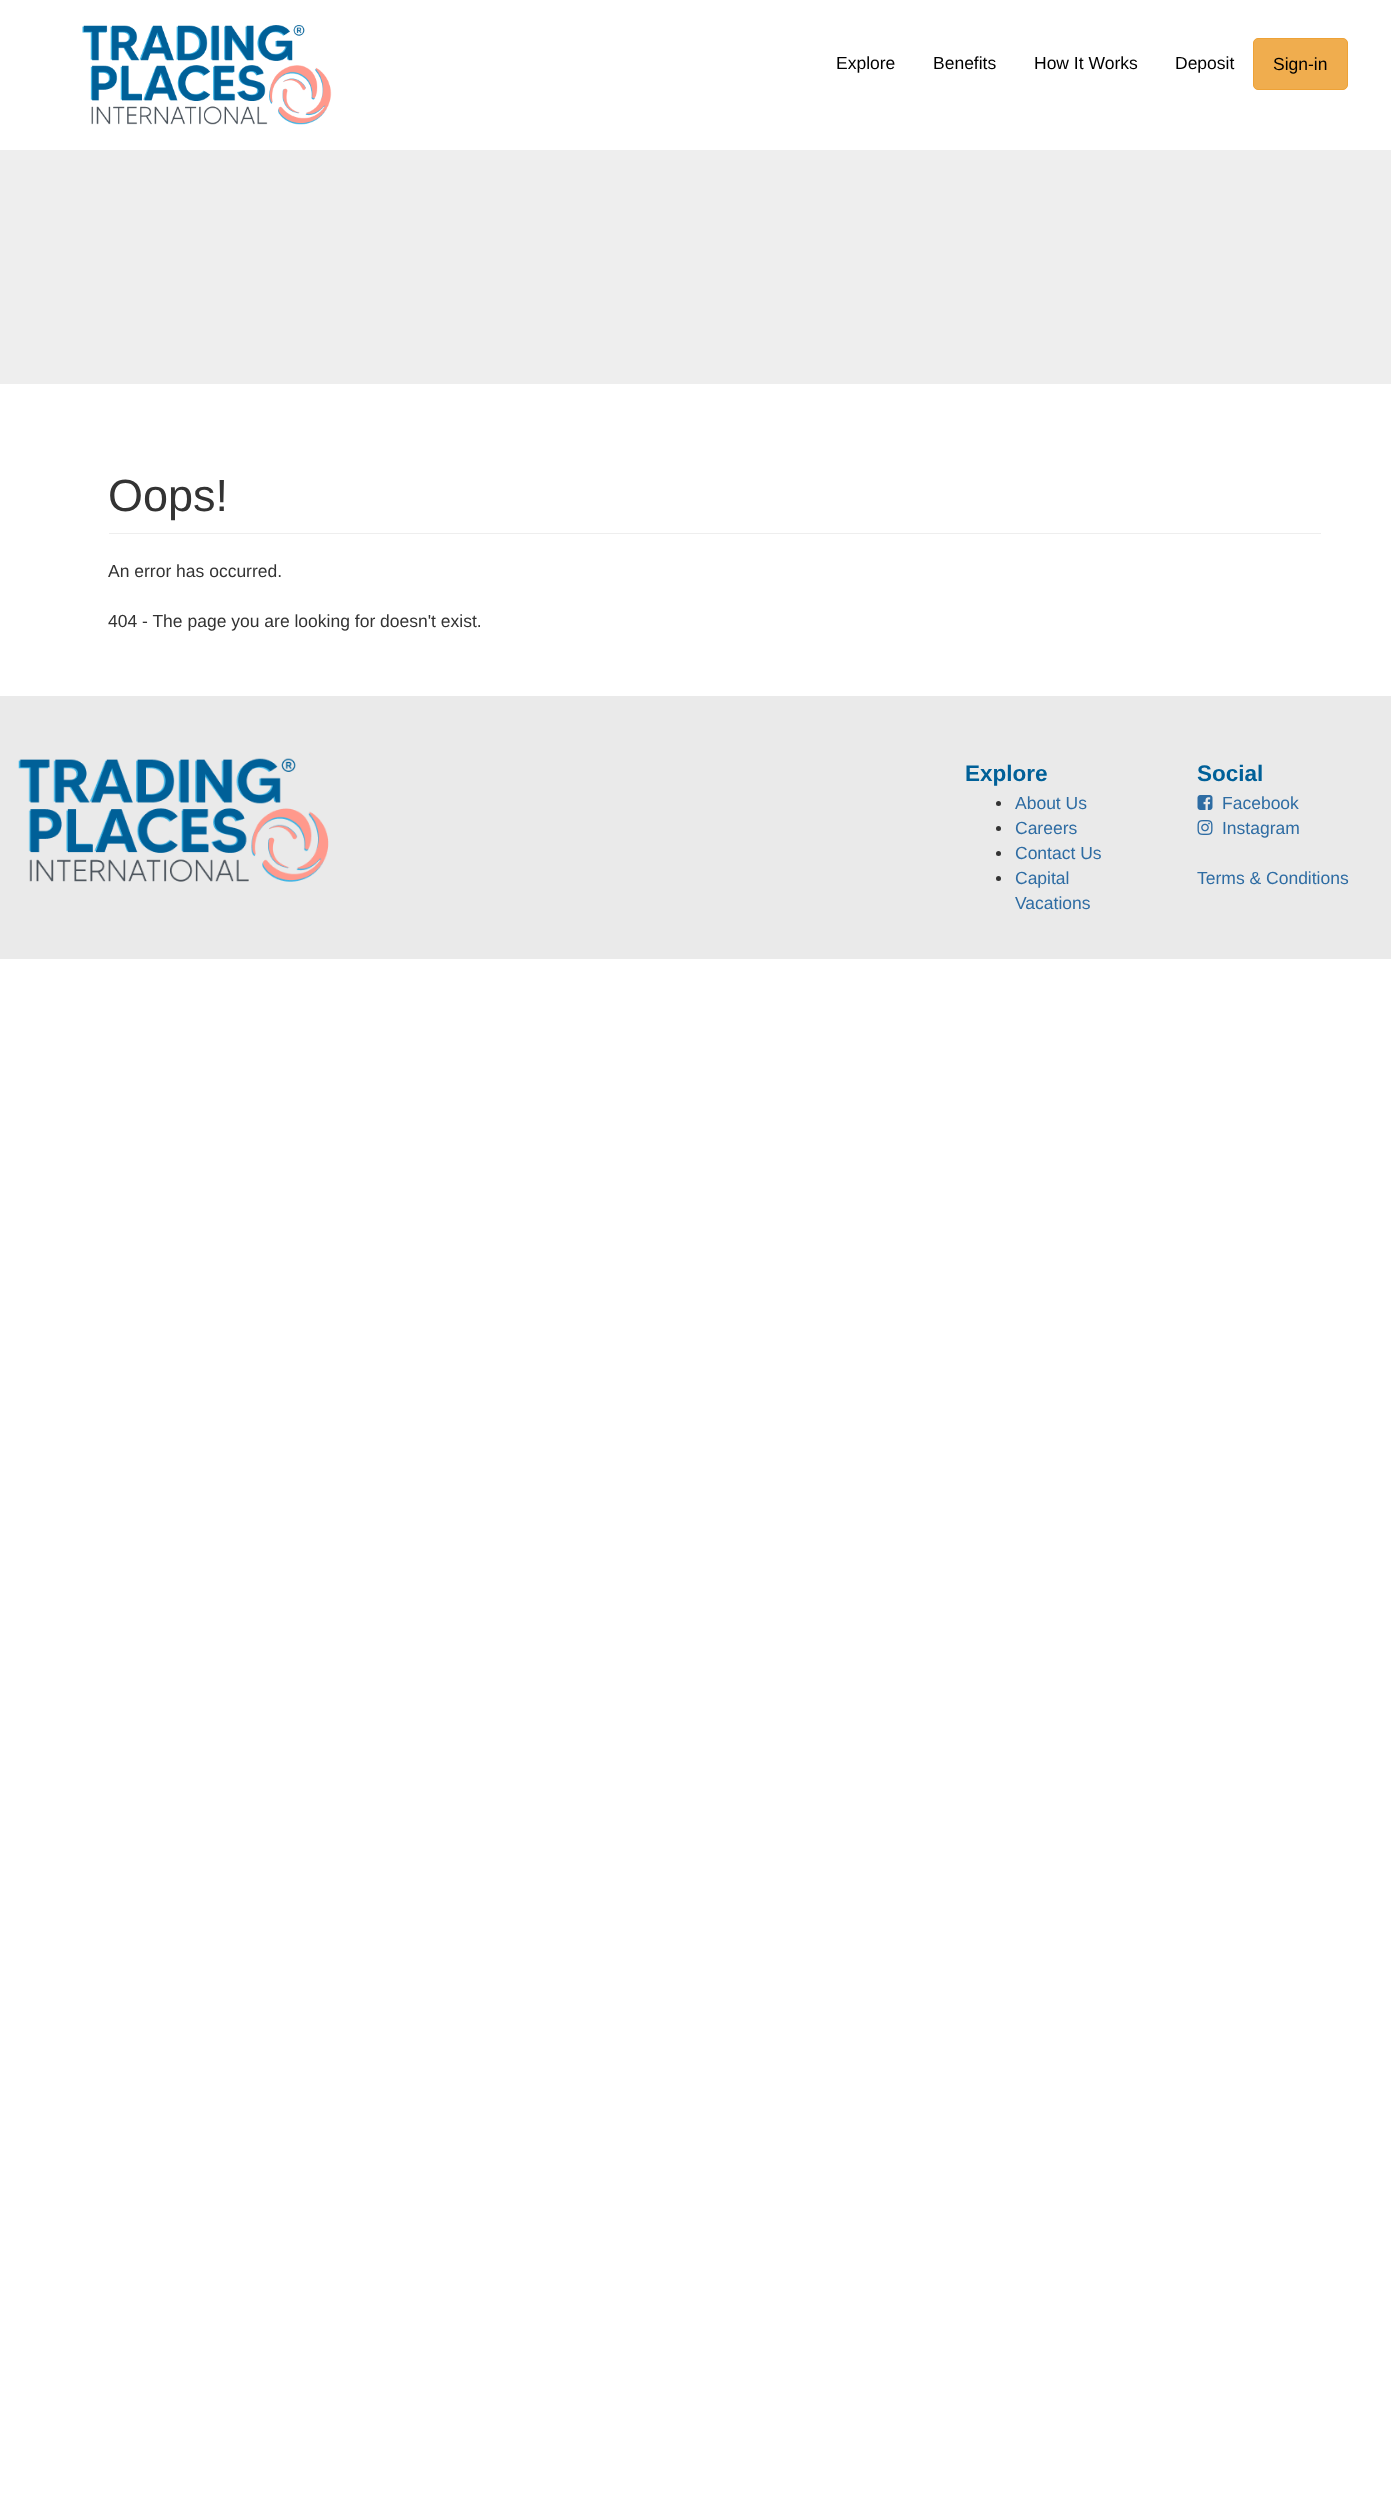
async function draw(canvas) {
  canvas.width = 1391
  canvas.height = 2498
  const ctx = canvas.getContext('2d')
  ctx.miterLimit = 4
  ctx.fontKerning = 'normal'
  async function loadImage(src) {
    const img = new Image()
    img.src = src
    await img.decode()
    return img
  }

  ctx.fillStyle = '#fff'
  ctx.fillRect(0, 0, 1391, 2498)
  ctx.drawImage(await loadImage('image0.png'), 82, 25, 250, 100)
  ctx.font = '17.5px Liberation Sans'
  ctx.fillStyle = '#000'
  ctx.fillText('Explore', 836, 69)
  ctx.fillText('Benefits', 933, 69)
  ctx.fillText('How It Works', 1034, 69)
  ctx.fillText('Deposit', 1175, 69)
  ctx.fillStyle = '#f0ad4e'
  ctx.beginPath()
  ctx.roundRect(1253.5, 38.5, 94, 51, 4.5)
  ctx.fill()
  ctx.strokeStyle = '#eea236'
  ctx.stroke()
  ctx.fillStyle = '#000'
  ctx.fillText('Sign-in', 1273, 70)
  ctx.fillStyle = '#eee'
  ctx.fillRect(0, 150, 1391, 234)
  ctx.fillRect(109, 533, 1212, 1)
  ctx.font = '45px Liberation Sans'
  ctx.fillStyle = '#333'
  ctx.fillText('Oops!', 108, 511)
  ctx.font = '17.5px Liberation Sans'
  ctx.fillText('An error has occurred.', 108, 577)
  ctx.fillText('404 - The page you are looking for doesn\'t exist.', 108, 627)
  ctx.fillStyle = '#eaeaea'
  ctx.fillRect(0, 696, 1391, 263)
  ctx.drawImage(await loadImage('image1.png'), 18, 758, 311, 124)
  ctx.font = 'bold 22.5px Liberation Sans'
  ctx.fillStyle = '#006098'
  ctx.fillText('Explore', 965, 781)
  ctx.fillStyle = '#333'
  ctx.beginPath()
  ctx.arc(998.5, 803.5, 2.5, 0, 2 * Math.PI)
  ctx.fill()
  ctx.font = '17.5px Liberation Sans'
  ctx.fillStyle = '#2e6ca3'
  ctx.fillText('About Us', 1015, 809)
  ctx.fillStyle = '#333'
  ctx.beginPath()
  ctx.arc(998.5, 828.5, 2.5, 0, 2 * Math.PI)
  ctx.fill()
  ctx.fillStyle = '#2e6ca3'
  ctx.fillText('Careers', 1015, 834)
  ctx.fillStyle = '#333'
  ctx.beginPath()
  ctx.arc(998.5, 853.5, 2.5, 0, 2 * Math.PI)
  ctx.fill()
  ctx.fillStyle = '#2e6ca3'
  ctx.fillText('Contact Us', 1015, 859)
  ctx.fillStyle = '#333'
  ctx.beginPath()
  ctx.arc(998.5, 878.5, 2.5, 0, 2 * Math.PI)
  ctx.fill()
  ctx.fillStyle = '#2e6ca3'
  ctx.fillText('Capital', 1015, 884)
  ctx.fillText('Vacations', 1015, 909)
  ctx.font = 'bold 22.5px Liberation Sans'
  ctx.fillStyle = '#006098'
  ctx.fillText('Social', 1197, 781)
  ctx.drawImage(await loadImage('image2.png'), 1197, 795, 16, 15)
  ctx.font = '17.5px Liberation Sans'
  ctx.fillStyle = '#2e6ca3'
  ctx.fillText('Facebook', 1222, 809)
  ctx.drawImage(await loadImage('image3.png'), 1197, 820, 16, 15)
  ctx.fillText('Instagram', 1222, 834)
  ctx.fillText('Terms & Conditions', 1197, 884)
}

draw(document.querySelector('canvas'))
